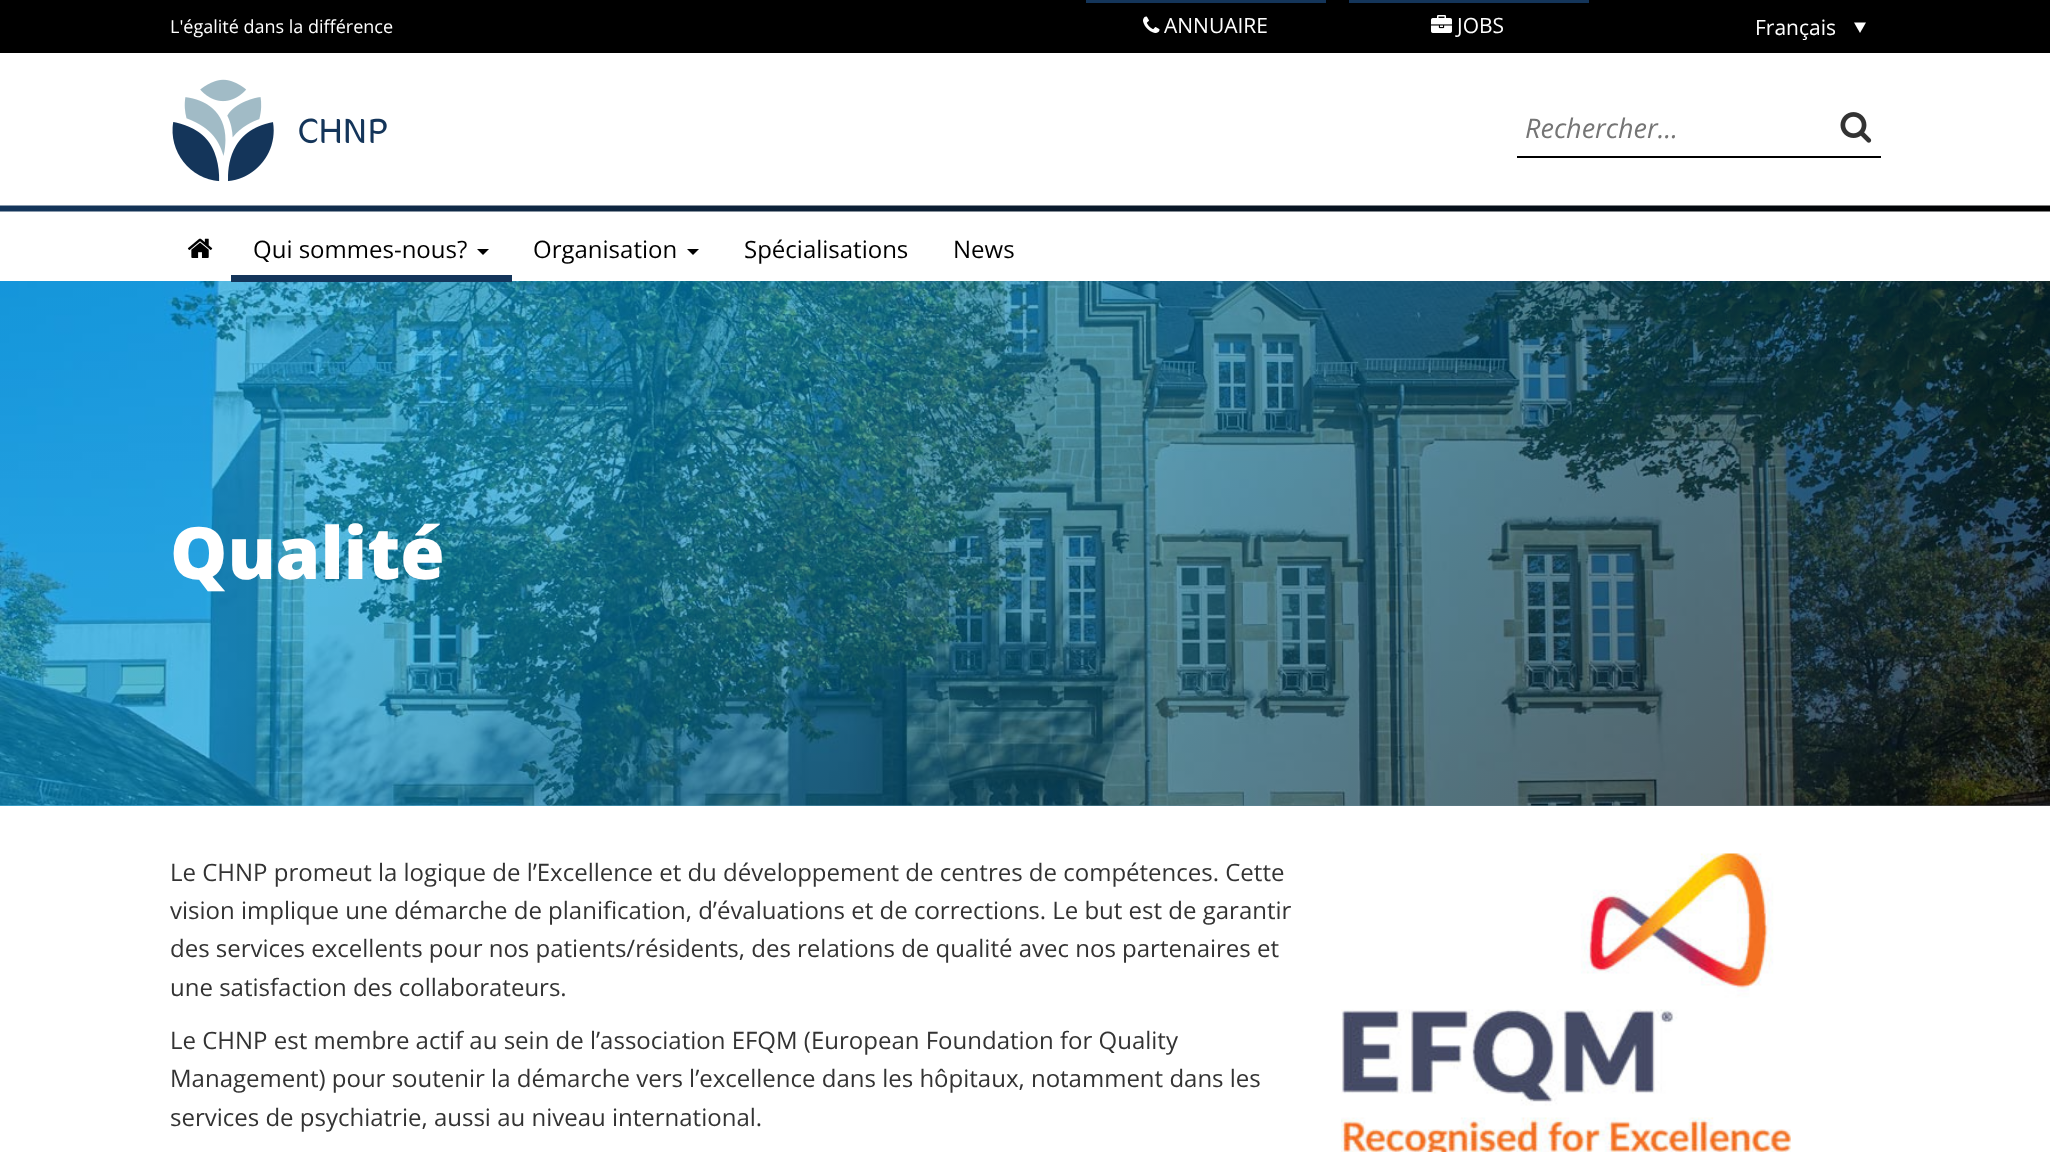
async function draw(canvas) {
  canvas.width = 2050
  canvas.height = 1152
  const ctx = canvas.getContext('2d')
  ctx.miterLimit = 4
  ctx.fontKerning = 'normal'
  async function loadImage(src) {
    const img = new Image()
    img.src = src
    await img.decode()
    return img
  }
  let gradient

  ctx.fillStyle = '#fff'
  ctx.fillRect(0, 0, 2050, 1152)
  ctx.fillStyle = '#000'
  ctx.fillRect(0, 0, 2050, 53)
  ctx.font = '18px Open Sans'
  ctx.fillStyle = '#fff'
  ctx.fillText('L\'égalité dans la différence', 170, 33)
  ctx.fillStyle = '#14355a'
  ctx.fillRect(1086, 0, 240, 3)
  ctx.drawImage(await loadImage('image0.png'), 1143, 16, 17, 17)
  ctx.font = '21px Open Sans'
  ctx.fillStyle = '#fff'
  ctx.fillText('ANNUAIRE', 1164, 33)
  ctx.fillStyle = '#14355a'
  ctx.fillRect(1349, 0, 240, 3)
  ctx.drawImage(await loadImage('image1.png'), 1431, 15, 21, 18)
  ctx.fillStyle = '#fff'
  ctx.fillText('JOBS', 1457, 33)
  ctx.fillText('Français', 1755, 35)
  ctx.beginPath()
  ctx.moveTo(1854, 22.5)
  ctx.lineTo(1866, 22.5)
  ctx.lineTo(1860, 33)
  ctx.closePath()
  ctx.fill()
  ctx.drawImage(await loadImage('image2.png'), 172, 79, 215, 103)
  ctx.fillStyle = '#000'
  ctx.fillRect(1517, 156, 364, 2)
  ctx.font = 'italic 27px Open Sans'
  ctx.fillStyle = '#757575'
  ctx.fillText('Rechercher...', 1525, 138)
  ctx.drawImage(await loadImage('image3.png'), 1840, 112, 32, 31)
  ctx.drawImage(await loadImage('image4.png'), 0, 205, 2050, 7)
  ctx.drawImage(await loadImage('image5.png'), 187, 238, 26, 20)
  ctx.drawImage(await loadImage('image6.png'), 0, 281, 2050, 525)
  gradient = ctx.createLinearGradient(381, -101, 1669, 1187)
  gradient.addColorStop(0, '#00a0df9e')
  gradient.addColorStop(0.25, '#00a0df9e')
  gradient.addColorStop(1, '#0000009e')
  ctx.fillStyle = gradient
  ctx.fillRect(0, 281, 2050, 525)
  ctx.fillStyle = '#14355a'
  ctx.fillRect(231, 275, 281, 7)
  ctx.font = '24px Open Sans'
  ctx.fillStyle = '#000'
  ctx.fillText('Qui sommes-nous?', 253, 258)
  ctx.beginPath()
  ctx.moveTo(477, 249)
  ctx.lineTo(489, 249)
  ctx.lineTo(483, 255)
  ctx.closePath()
  ctx.fill()
  ctx.fillText('Organisation', 533, 258)
  ctx.beginPath()
  ctx.moveTo(687, 249)
  ctx.lineTo(699, 249)
  ctx.lineTo(693, 255)
  ctx.closePath()
  ctx.fill()
  ctx.fillText('Spécialisations', 744, 258)
  ctx.fillText('News', 953, 258)
  ctx.font = '800 72px Open Sans'
  ctx.fillStyle = '#fff'
  ctx.fillText('Qualité', 170, 579)
  ctx.font = '24px Open Sans'
  ctx.fillStyle = '#333'
  ctx.fillText('Le CHNP promeut la logique de l’Excellence et du développement de centres de compétences. Cette', 170, 881)
  ctx.fillText('vision implique une démarche de planification, d’évaluations et de corrections. Le but est de garantir', 170, 919)
  ctx.fillText('des services excellents pour nos patients/résidents, des relations de qualité avec nos partenaires et', 170, 957)
  ctx.fillText('une satisfaction des collaborateurs.', 170, 996)
  ctx.fillText('Le CHNP est membre actif au sein de l’association EFQM (European Foundation for Quality', 170, 1049)
  ctx.fillText('Management) pour soutenir la démarche vers l’excellence dans les hôpitaux, notamment dans les', 170, 1087)
  ctx.fillText('services de psychiatrie, aussi au niveau international.', 170, 1126)
  ctx.drawImage(await loadImage('image7.png'), 1341, 853, 450, 299)
}

draw(document.querySelector('canvas'))
